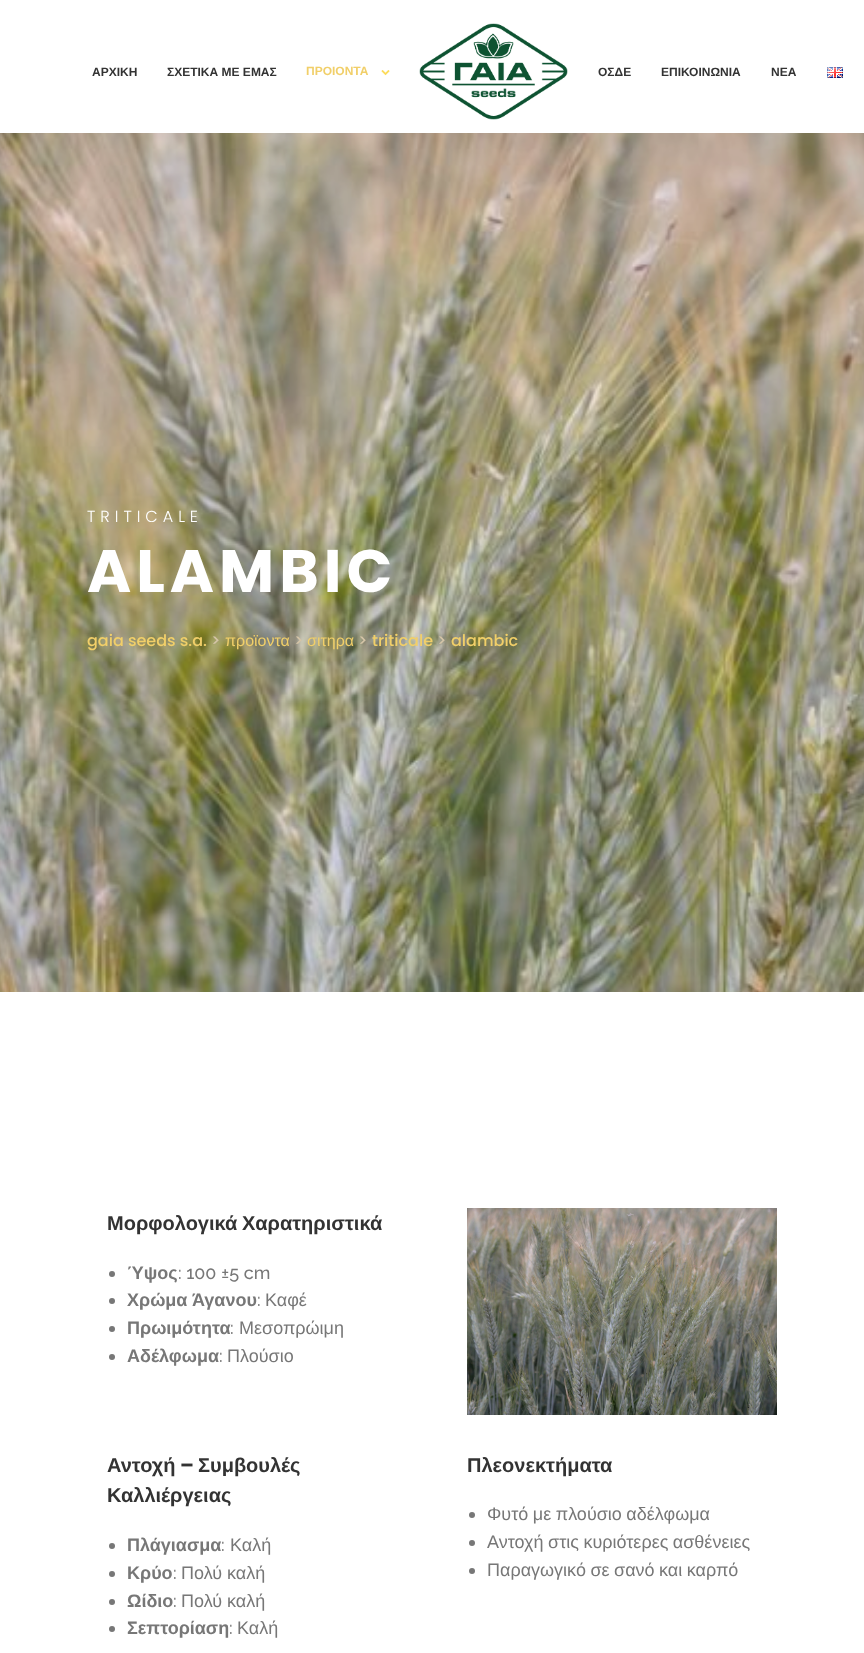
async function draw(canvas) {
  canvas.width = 864
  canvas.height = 1653
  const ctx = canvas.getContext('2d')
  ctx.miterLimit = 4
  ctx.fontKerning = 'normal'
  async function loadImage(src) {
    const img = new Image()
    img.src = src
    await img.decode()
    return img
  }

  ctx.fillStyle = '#fff'
  ctx.fillRect(0, 0, 864, 1653)
  ctx.font = 'bold 12px Liberation Sans'
  ctx.fillStyle = '#333'
  ctx.fillText('ΑΡΧΙΚΗ', 92, 76)
  ctx.fillText('ΣΧΕΤΙΚΑ ΜΕ ΕΜΑΣ', 167, 76)
  ctx.fillStyle = '#f1cf69'
  ctx.fillText('ΠΡΟΙΟΝΤΑ', 306, 75)
  ctx.drawImage(await loadImage('image0.png'), 381, 70, 9, 6)
  ctx.drawImage(await loadImage('image1.png'), 419, 23, 149, 97)
  ctx.fillStyle = '#333'
  ctx.fillText('ΟΣΔΕ', 598, 76)
  ctx.fillText('ΕΠΙΚΟΙΝΩΝΙΑ', 661, 76)
  ctx.fillText('ΝΕΑ', 771, 76)
  ctx.drawImage(await loadImage('image2.png'), 827, 67, 16, 11)
  ctx.drawImage(await loadImage('image3.png'), 0, 133, 864, 859)
  ctx.letterSpacing = '5px'
  ctx.font = '300 16px Poppins'
  ctx.fillStyle = '#fff'
  ctx.fillText('TRITICALE', 87, 522)
  ctx.font = 'bold 60px Poppins'
  ctx.fillText('ALAMBIC', 87, 592)
  ctx.letterSpacing = '0px'
  ctx.font = '500 16px Poppins'
  ctx.fillStyle = '#f1cf69'
  ctx.fillText('gaia seeds s.a.', 87, 646)
  ctx.fillStyle = '#d4c4a7'
  ctx.fillText('>', 211, 646)
  ctx.font = '16px Liberation Sans'
  ctx.fillStyle = '#f1cf69'
  ctx.fillText('προϊοντα', 225, 646)
  ctx.font = '500 16px Poppins'
  ctx.fillStyle = '#d4c4a7'
  ctx.fillText('>', 294, 646)
  ctx.font = '16px Liberation Sans'
  ctx.fillStyle = '#f1cf69'
  ctx.fillText('σιτηρα', 307, 646)
  ctx.font = '500 16px Poppins'
  ctx.fillStyle = '#d4c4a7'
  ctx.fillText('>', 358, 646)
  ctx.fillStyle = '#f1cf69'
  ctx.fillText('triticale', 372, 646)
  ctx.fillStyle = '#d4c4a7'
  ctx.fillText('>', 437, 646)
  ctx.fillStyle = '#f1cf69'
  ctx.fillText('alambic', 451, 646)
  ctx.wordSpacing = '-1px'
  ctx.font = 'bold 20px Liberation Sans'
  ctx.fillStyle = '#333'
  ctx.fillText('Μορφολογικά Χαρατηριστικά', 107, 1230)
  ctx.fillStyle = '#777'
  ctx.beginPath()
  ctx.arc(112, 1274, 3, 0, 2 * Math.PI)
  ctx.fill()
  ctx.wordSpacing = '0px'
  ctx.font = 'bold 18px Liberation Sans'
  ctx.fillText('Ύψος', 127, 1279)
  ctx.font = '500 18px Raleway'
  ctx.fillText(': 100 ±5 cm', 178, 1279)
  ctx.beginPath()
  ctx.arc(112, 1301, 3, 0, 2 * Math.PI)
  ctx.fill()
  ctx.font = 'bold 18px Liberation Sans'
  ctx.fillText('Χρώμα', 127, 1306)
  ctx.fillText('Άγανου', 192, 1306)
  ctx.font = '500 18px Raleway'
  ctx.fillText(':', 257, 1306)
  ctx.font = '18px Liberation Sans'
  ctx.fillText('Καφέ', 265, 1306)
  ctx.beginPath()
  ctx.arc(112, 1329, 3, 0, 2 * Math.PI)
  ctx.fill()
  ctx.font = 'bold 18px Liberation Sans'
  ctx.fillText('Πρωιμότητα', 127, 1334)
  ctx.font = '500 18px Raleway'
  ctx.fillText(':', 230, 1334)
  ctx.font = '18px Liberation Sans'
  ctx.fillText('Μεσοπρώιμη', 239, 1334)
  ctx.beginPath()
  ctx.arc(112, 1357, 3, 0, 2 * Math.PI)
  ctx.fill()
  ctx.font = 'bold 18px Liberation Sans'
  ctx.fillText('Αδέλφωμα', 127, 1362)
  ctx.font = '500 18px Raleway'
  ctx.fillText(':', 219, 1362)
  ctx.font = '18px Liberation Sans'
  ctx.fillText('Πλούσιο', 227, 1362)
  ctx.drawImage(await loadImage('image4.png'), 467, 1208, 310, 207)
  ctx.font = 'bold 20px Liberation Sans'
  ctx.fillStyle = '#333'
  ctx.fillText('Αντοχή', 107, 1472)
  ctx.font = 'bold 20px Poppins'
  ctx.fillText('–', 180, 1472)
  ctx.font = 'bold 20px Liberation Sans'
  ctx.fillText('Συμβουλές', 198, 1472)
  ctx.fillText('Καλλιέργειας', 107, 1502)
  ctx.fillStyle = '#777'
  ctx.beginPath()
  ctx.arc(112, 1546, 3, 0, 2 * Math.PI)
  ctx.fill()
  ctx.font = 'bold 18px Liberation Sans'
  ctx.fillText('Πλάγιασμα', 127, 1551)
  ctx.font = '500 18px Raleway'
  ctx.fillText(':', 221, 1551)
  ctx.font = '18px Liberation Sans'
  ctx.fillText('Καλή', 230, 1551)
  ctx.beginPath()
  ctx.arc(112, 1574, 3, 0, 2 * Math.PI)
  ctx.fill()
  ctx.font = 'bold 18px Liberation Sans'
  ctx.fillText('Κρύο', 127, 1579)
  ctx.font = '500 18px Raleway'
  ctx.fillText(':', 173, 1579)
  ctx.font = '18px Liberation Sans'
  ctx.fillText('Πολύ καλή', 181, 1579)
  ctx.beginPath()
  ctx.arc(112, 1602, 3, 0, 2 * Math.PI)
  ctx.fill()
  ctx.font = 'bold 18px Liberation Sans'
  ctx.fillText('Ωίδιο', 127, 1607)
  ctx.font = '500 18px Raleway'
  ctx.fillText(':', 173, 1607)
  ctx.font = '18px Liberation Sans'
  ctx.fillText('Πολύ καλή', 181, 1607)
  ctx.beginPath()
  ctx.arc(112, 1629, 3, 0, 2 * Math.PI)
  ctx.fill()
  ctx.font = 'bold 18px Liberation Sans'
  ctx.fillText('Σεπτορίαση', 127, 1634)
  ctx.font = '500 18px Raleway'
  ctx.fillText(':', 229, 1634)
  ctx.font = '18px Liberation Sans'
  ctx.fillText('Καλή', 237, 1634)
  ctx.font = 'bold 20px Liberation Sans'
  ctx.fillStyle = '#333'
  ctx.fillText('Πλεονεκτήματα', 467, 1472)
  ctx.fillStyle = '#777'
  ctx.beginPath()
  ctx.arc(472, 1515, 3, 0, 2 * Math.PI)
  ctx.fill()
  ctx.wordSpacing = '-0.5px'
  ctx.font = '18px Liberation Sans'
  ctx.fillText('Φυτό με πλούσιο αδέλφωμα', 487, 1520)
  ctx.beginPath()
  ctx.arc(472, 1543, 3, 0, 2 * Math.PI)
  ctx.fill()
  ctx.fillText('Αντοχή στις κυριότερες ασθένειες', 487, 1548)
  ctx.beginPath()
  ctx.arc(472, 1571, 3, 0, 2 * Math.PI)
  ctx.fill()
  ctx.fillText('Παραγωγικό σε σανό και καρπό', 487, 1576)
}

draw(document.querySelector('canvas'))
